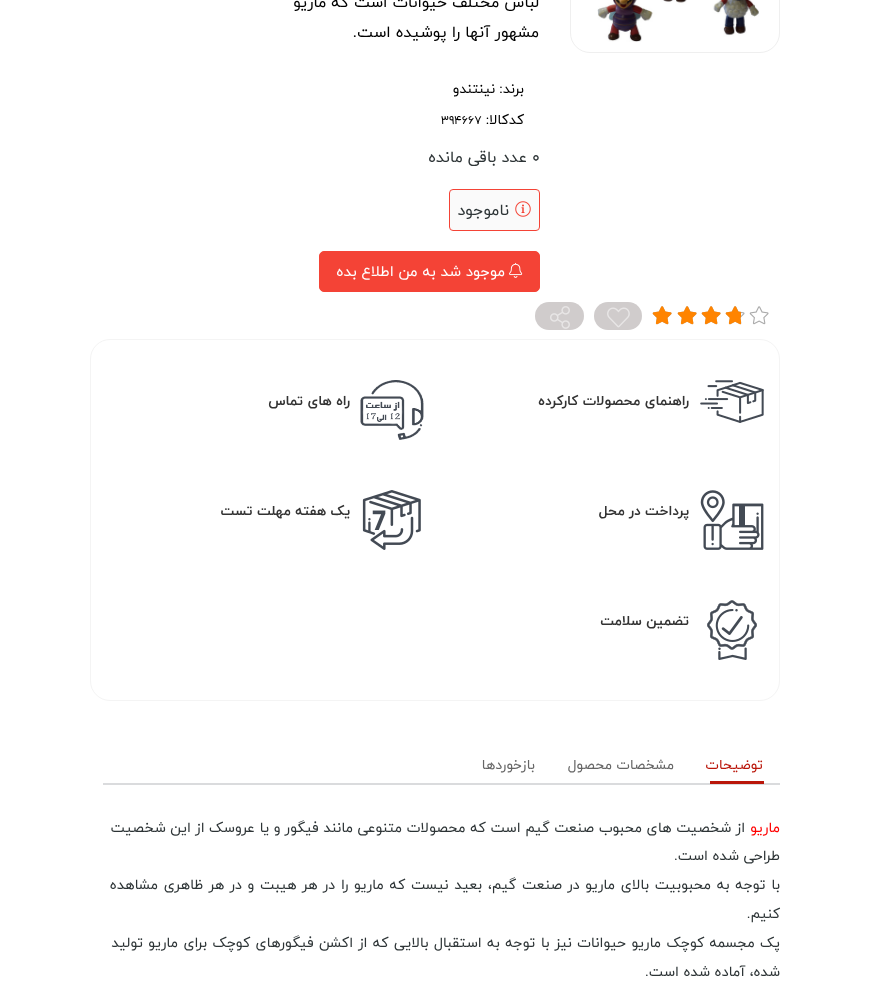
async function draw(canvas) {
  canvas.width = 869
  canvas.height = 988
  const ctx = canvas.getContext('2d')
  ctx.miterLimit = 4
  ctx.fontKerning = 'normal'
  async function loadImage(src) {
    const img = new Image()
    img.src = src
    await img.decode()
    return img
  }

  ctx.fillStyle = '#fff'
  ctx.fillRect(0, 0, 869, 988)
  ctx.beginPath()
  ctx.roundRect(570.5, -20.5, 209, 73, 19.5)
  ctx.strokeStyle = '#efefef'
  ctx.stroke()
  ctx.drawImage(await loadImage('image0.png'), 597, 0, 162, 42)
  ctx.direction = 'rtl'
  ctx.font = '16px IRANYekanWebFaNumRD'
  ctx.fillStyle = '#000'
  ctx.fillText('لباس مختلف حیوانات است که ماریو‌', 539, 7)
  ctx.fillText('مشهور آنها را پوشیده است.', 539, 37)
  ctx.font = '14px IRANYekanWebFaNumRD'
  ctx.fillText('برند:', 524, 93)
  ctx.fillText('نینتندو', 495, 93)
  ctx.fillText('کدکالا:', 524, 124)
  ctx.direction = 'ltr'
  ctx.font = '12px IRANYekanWebFaNumRD'
  ctx.fillText('394667', 441, 124)
  ctx.font = '16px IRANYekanWebFaNumRD'
  ctx.fillStyle = '#2d3436'
  ctx.fillText('0', 532, 162)
  ctx.direction = 'rtl'
  ctx.fillText('عدد باقی مانده', 527, 162)
  ctx.fillStyle = '#fafafa'
  ctx.beginPath()
  ctx.roundRect(449.5, 189.5, 90, 41, 3.5)
  ctx.fill()
  ctx.strokeStyle = '#f44336'
  ctx.stroke()
  ctx.drawImage(await loadImage('image1.png'), 515, 201, 16, 16)
  ctx.fillStyle = '#2d3436'
  ctx.fillText('ناموجود', 509, 215)
  ctx.fillStyle = '#f44336'
  ctx.beginPath()
  ctx.roundRect(319.5, 251.5, 220, 40, 4.5)
  ctx.fill()
  ctx.stroke()
  ctx.drawImage(await loadImage('image2.png'), 509, 262, 14, 16)
  ctx.font = '15px IRANYekanWebFaNumRD'
  ctx.fillStyle = '#fff'
  ctx.fillText('موجود شد به من اطلاع بده', 505, 276)
  ctx.drawImage(await loadImage('image3.png'), 749, 306, 20, 19)
  ctx.drawImage(await loadImage('image3.png'), 725, 306, 20, 19)
  ctx.drawImage(await loadImage('image3.png'), 701, 306, 20, 19)
  ctx.drawImage(await loadImage('image3.png'), 677, 306, 20, 19)
  ctx.drawImage(await loadImage('image3.png'), 652, 306, 20, 19)
  ctx.drawImage(await loadImage('image4.png'), 725, 306, 16, 19)
  ctx.drawImage(await loadImage('image5.png'), 701, 306, 20, 19)
  ctx.drawImage(await loadImage('image5.png'), 677, 306, 20, 19)
  ctx.drawImage(await loadImage('image5.png'), 652, 306, 20, 19)
  ctx.fillStyle = '#d0cccc'
  ctx.beginPath()
  ctx.roundRect(594, 302, 48, 28, 14)
  ctx.fill()
  ctx.drawImage(await loadImage('image6.png'), 607, 307, 23, 21)
  ctx.beginPath()
  ctx.roundRect(535, 302, 49, 28, 14)
  ctx.fill()
  ctx.drawImage(await loadImage('image7.png'), 550, 306, 20, 23)
  ctx.beginPath()
  ctx.roundRect(90.5, 339.5, 689, 361, 19.5)
  ctx.strokeStyle = '#f4f4f4'
  ctx.stroke()
  ctx.drawImage(await loadImage('image8.png'), 700, 380, 64, 43)
  ctx.font = 'bold 14px IRANYekanWebFaNumRD'
  ctx.fillStyle = '#333'
  ctx.fillText('راهنمای محصولات کارکرده', 689, 405)
  ctx.drawImage(await loadImage('image9.png'), 360, 380, 64, 60)
  ctx.fillText('راه های تماس', 350, 405)
  ctx.drawImage(await loadImage('image10.png'), 700, 490, 64, 60)
  ctx.fillText('پرداخت در محل', 689, 515)
  ctx.drawImage(await loadImage('image11.png'), 362, 490, 59, 60)
  ctx.fillText('یک هفته مهلت تست', 350, 515)
  ctx.drawImage(await loadImage('image12.png'), 707, 600, 50, 60)
  ctx.fillText('تضمین سلامت', 689, 625)
  ctx.fillStyle = '#dadbdd'
  ctx.fillRect(103, 783, 677, 2)
  ctx.font = '14px IRANYekanWebFaNumRD'
  ctx.fillStyle = '#ba160a'
  ctx.fillText('توضیحات', 763, 769)
  ctx.fillRect(710, 781, 54, 3)
  ctx.fillStyle = '#666'
  ctx.fillText('مشخصات محصول', 674, 769)
  ctx.fillText('بازخوردها', 535, 769)
  ctx.font = '14.4px IRANYekanWebFaNumRD'
  ctx.fillStyle = '#f00'
  ctx.fillText('ماریو', 780, 832)
  ctx.fillStyle = '#2d3436'
  ctx.fillText('از شخصیت های محبوب صنعت گیم است که محصولات متنوعی مانند فیگور و یا عروسک از این شخصیت', 745, 832)
  ctx.fillText('طراحی شده است.', 780, 860)
  ctx.wordSpacing = '1.2px'
  ctx.fillText('با توجه به محبوبیت بالای ماریو در صنعت گیم، بعید نیست که ماریو را در هر هیبت و در هر ظاهری مشاهده', 780, 889)
  ctx.wordSpacing = '0px'
  ctx.fillText('کنیم.', 780, 918)
  ctx.wordSpacing = '0.8px'
  ctx.fillText('پک مجسمه کوچک ماریو حیوانات نیز با توجه به استقبال بالایی که از اکشن فیگورهای کوچک برای ماریو تولید', 780, 947)
  ctx.wordSpacing = '0px'
  ctx.fillText('شده، آماده شده است.', 780, 976)
}

draw(document.querySelector('canvas'))
